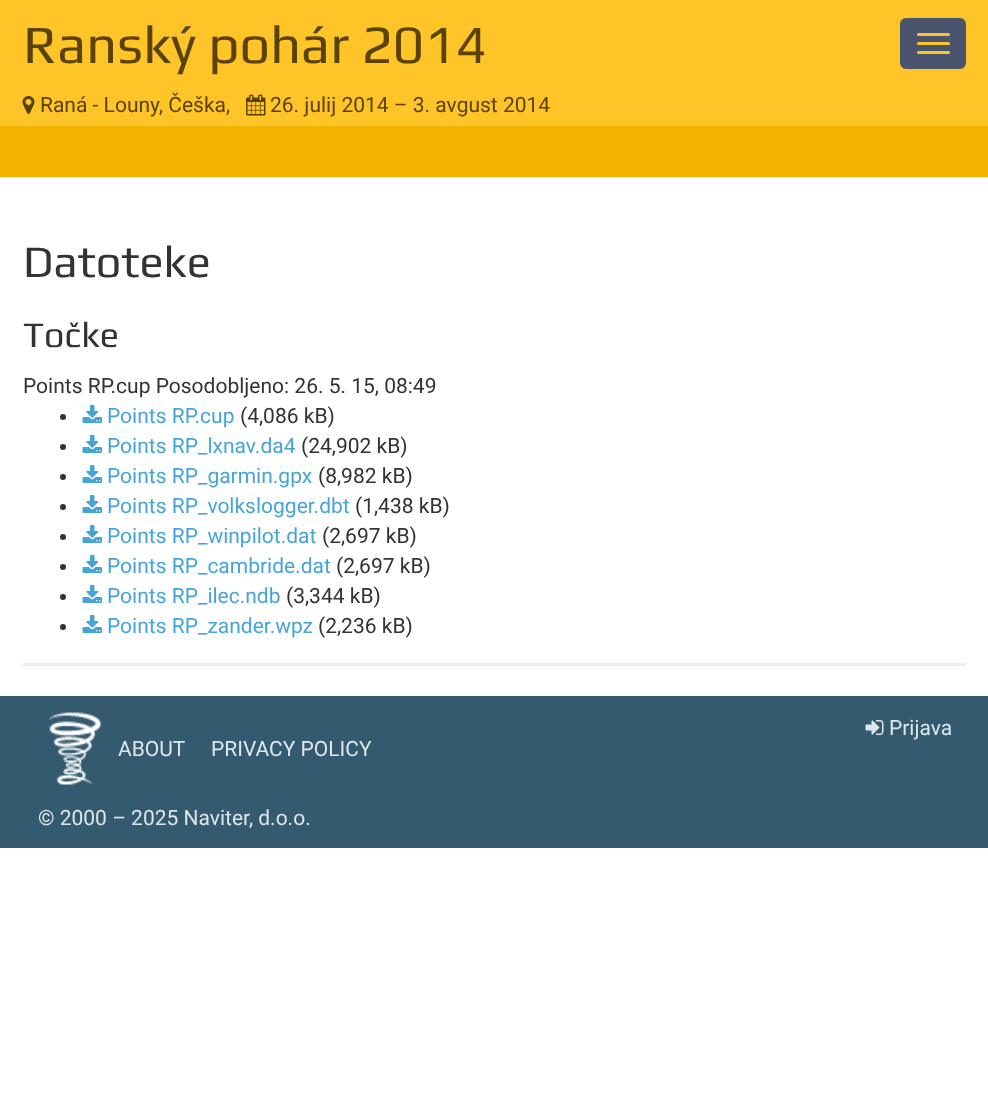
async function draw(canvas) {
  canvas.width = 988
  canvas.height = 1107
  const ctx = canvas.getContext('2d')
  ctx.miterLimit = 4
  ctx.fontKerning = 'normal'
  async function loadImage(src) {
    const img = new Image()
    img.src = src
    await img.decode()
    return img
  }

  ctx.fillStyle = '#fff'
  ctx.fillRect(0, 0, 988, 1107)
  ctx.fillStyle = '#ffc528'
  ctx.fillRect(0, 0, 988, 126)
  ctx.font = '54px Play'
  ctx.fillStyle = '#5b4200'
  ctx.fillText('Ranský pohár 2014', 23, 63)
  ctx.fillStyle = '#4a556d'
  ctx.beginPath()
  ctx.roundRect(901, 19, 64, 49, 5)
  ctx.fill()
  ctx.strokeStyle = '#4a556d'
  ctx.lineWidth = 2
  ctx.stroke()
  ctx.fillStyle = '#ffc528'
  ctx.beginPath()
  ctx.roundRect(917, 33, 33, 3, 1.5)
  ctx.fill()
  ctx.beginPath()
  ctx.roundRect(917, 42, 33, 3, 1.5)
  ctx.fill()
  ctx.beginPath()
  ctx.roundRect(917, 51, 33, 3, 1.5)
  ctx.fill()
  ctx.drawImage(await loadImage('image0.png'), 22, 96, 13, 18)
  ctx.font = '21px Roboto'
  ctx.fillStyle = '#5b4200'
  ctx.fillText('Raná - Louny, Češka,', 40, 112)
  ctx.drawImage(await loadImage('image1.png'), 246, 94, 20, 22)
  ctx.fillText('26. julij 2014 – 3. avgust 2014', 270, 112)
  ctx.fillStyle = '#f4b200'
  ctx.fillRect(0, 126, 988, 51)
  ctx.font = '45px Play'
  ctx.fillStyle = '#333'
  ctx.fillText('Datoteke', 23, 277)
  ctx.font = '36px Play'
  ctx.fillText('Točke', 23, 347)
  ctx.font = '21px Roboto'
  ctx.fillText('Points RP.cup Posodobljeno: 26. 5. 15, 08:49', 23, 393)
  ctx.beginPath()
  ctx.arc(63, 417, 3, 0, 2 * Math.PI)
  ctx.fill()
  ctx.drawImage(await loadImage('image2.png'), 82, 405, 20, 18)
  ctx.fillStyle = '#47a4d9'
  ctx.fillText('Points RP.cup', 107, 423)
  ctx.fillStyle = '#333'
  ctx.fillText('(4,086 kB)', 240, 423)
  ctx.beginPath()
  ctx.arc(63, 447, 3, 0, 2 * Math.PI)
  ctx.fill()
  ctx.drawImage(await loadImage('image2.png'), 82, 435, 20, 18)
  ctx.fillStyle = '#47a4d9'
  ctx.fillText('Points RP_lxnav.da4', 107, 453)
  ctx.fillStyle = '#333'
  ctx.fillText('(24,902 kB)', 301, 453)
  ctx.beginPath()
  ctx.arc(63, 477, 3, 0, 2 * Math.PI)
  ctx.fill()
  ctx.drawImage(await loadImage('image2.png'), 82, 465, 20, 18)
  ctx.fillStyle = '#47a4d9'
  ctx.fillText('Points RP_garmin.gpx', 107, 483)
  ctx.fillStyle = '#333'
  ctx.fillText('(8,982 kB)', 318, 483)
  ctx.beginPath()
  ctx.arc(63, 507, 3, 0, 2 * Math.PI)
  ctx.fill()
  ctx.drawImage(await loadImage('image2.png'), 82, 495, 20, 18)
  ctx.fillStyle = '#47a4d9'
  ctx.fillText('Points RP_volkslogger.dbt', 107, 513)
  ctx.fillStyle = '#333'
  ctx.fillText('(1,438 kB)', 355, 513)
  ctx.beginPath()
  ctx.arc(63, 537, 3, 0, 2 * Math.PI)
  ctx.fill()
  ctx.drawImage(await loadImage('image2.png'), 82, 525, 20, 18)
  ctx.fillStyle = '#47a4d9'
  ctx.fillText('Points RP_winpilot.dat', 107, 543)
  ctx.fillStyle = '#333'
  ctx.fillText('(2,697 kB)', 322, 543)
  ctx.beginPath()
  ctx.arc(63, 567, 3, 0, 2 * Math.PI)
  ctx.fill()
  ctx.drawImage(await loadImage('image2.png'), 82, 555, 20, 18)
  ctx.fillStyle = '#47a4d9'
  ctx.fillText('Points RP_cambride.dat', 107, 573)
  ctx.fillStyle = '#333'
  ctx.fillText('(2,697 kB)', 336, 573)
  ctx.beginPath()
  ctx.arc(63, 597, 3, 0, 2 * Math.PI)
  ctx.fill()
  ctx.drawImage(await loadImage('image2.png'), 82, 585, 20, 18)
  ctx.fillStyle = '#47a4d9'
  ctx.fillText('Points RP_ilec.ndb', 107, 603)
  ctx.fillStyle = '#333'
  ctx.fillText('(3,344 kB)', 286, 603)
  ctx.beginPath()
  ctx.arc(63, 627, 3, 0, 2 * Math.PI)
  ctx.fill()
  ctx.drawImage(await loadImage('image2.png'), 82, 615, 20, 18)
  ctx.fillStyle = '#47a4d9'
  ctx.fillText('Points RP_zander.wpz', 107, 633)
  ctx.fillStyle = '#333'
  ctx.fillText('(2,236 kB)', 318, 633)
  ctx.fillStyle = '#eee'
  ctx.fillRect(23, 663, 943, 3)
  ctx.fillStyle = '#345a6f'
  ctx.fillRect(0, 696, 988, 152)
  ctx.drawImage(await loadImage('image3.png'), 865, 720, 19, 15)
  ctx.fillStyle = '#dce7ed'
  ctx.fillText('Prijava', 889, 735)
  ctx.drawImage(await loadImage('image4.png'), 49, 712, 52, 73)
  ctx.fillText('ABOUT', 118, 756)
  ctx.fillText('PRIVACY POLICY', 211, 756)
  ctx.fillText('© 2000 – 2025 Naviter, d.o.o.', 38, 825)
}

draw(document.querySelector('canvas'))
